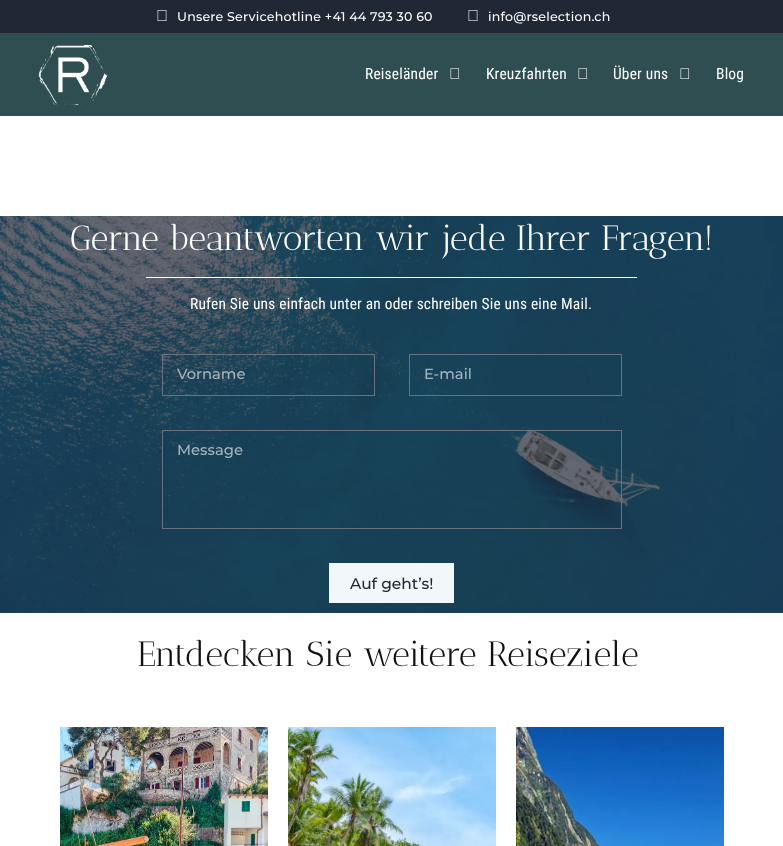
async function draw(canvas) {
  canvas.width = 783
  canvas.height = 846
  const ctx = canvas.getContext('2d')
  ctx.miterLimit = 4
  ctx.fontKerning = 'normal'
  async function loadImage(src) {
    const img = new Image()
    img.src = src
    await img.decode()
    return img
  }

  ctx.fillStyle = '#fff'
  ctx.fillRect(0, 0, 783, 846)
  ctx.fillStyle = '#202735'
  ctx.fillRect(0, 0, 783, 33)
  ctx.drawImage(await loadImage('image0.png'), 157, 10, 10, 11)
  ctx.letterSpacing = '0.2px'
  ctx.font = '500 12.6px Montserrat'
  ctx.fillStyle = '#fff'
  ctx.fillText('Unsere Servicehotline +41 44 793 30 60', 177, 21)
  ctx.drawImage(await loadImage('image0.png'), 468, 10, 10, 11)
  ctx.fillText('info@rselection.ch', 488, 21)
  ctx.fillStyle = '#2f4e52'
  ctx.fillRect(0, 33, 783, 83)
  ctx.drawImage(await loadImage('image1.png'), 38, 45, 70, 60)
  ctx.font = '15.45px Roboto Condensed'
  ctx.fillStyle = '#fff'
  ctx.fillText('Reiseländer', 365, 79)
  ctx.drawImage(await loadImage('image2.png'), 450, 68, 10, 11)
  ctx.fillText('Kreuzfahrten', 486, 79)
  ctx.drawImage(await loadImage('image2.png'), 578, 68, 10, 11)
  ctx.fillText('Über uns', 613, 79)
  ctx.drawImage(await loadImage('image2.png'), 680, 68, 10, 11)
  ctx.fillText('Blog', 716, 79)
  ctx.drawImage(await loadImage('image3.png'), 0, 216, 783, 397)
  ctx.letterSpacing = '-0.1px'
  ctx.font = '35.1px Antic Didone'
  ctx.fillText('Gerne beantworten wir jede Ihrer Fragen!', 70, 250)
  ctx.fillRect(146, 277, 491, 1)
  ctx.letterSpacing = '0.2px'
  ctx.font = '15.45px Roboto Condensed'
  ctx.fillText('Rufen Sie uns einfach unter an oder schreiben Sie uns eine Mail.', 190, 309)
  ctx.strokeStyle = '#69727d'
  ctx.strokeRect(162.5, 354.5, 212, 41)
  ctx.letterSpacing = '0px'
  ctx.font = '500 14.75px Montserrat'
  ctx.fillStyle = '#a6b4bc'
  ctx.fillText('Vorname', 177, 379)
  ctx.strokeRect(409.5, 354.5, 212, 41)
  ctx.fillText('E-mail', 424, 379)
  ctx.strokeRect(162.5, 430.5, 459, 98)
  ctx.fillText('Message', 177, 455)
  ctx.fillStyle = '#f2f7fa'
  ctx.fillRect(329, 563, 125, 40)
  ctx.font = '500 15.45px Montserrat'
  ctx.fillStyle = '#202735'
  ctx.fillText('Auf geht’s!', 350, 589)
  ctx.letterSpacing = '-0.1px'
  ctx.font = '35.1px Antic Didone'
  ctx.fillStyle = '#111'
  ctx.fillText('Entdecken Sie weitere Reiseziele', 137, 666)
  ctx.drawImage(await loadImage('image4.png'), 60, 727, 208, 119)
  ctx.drawImage(await loadImage('image5.png'), 288, 727, 208, 119)
  ctx.drawImage(await loadImage('image6.png'), 516, 727, 208, 119)
}

draw(document.querySelector('canvas'))
